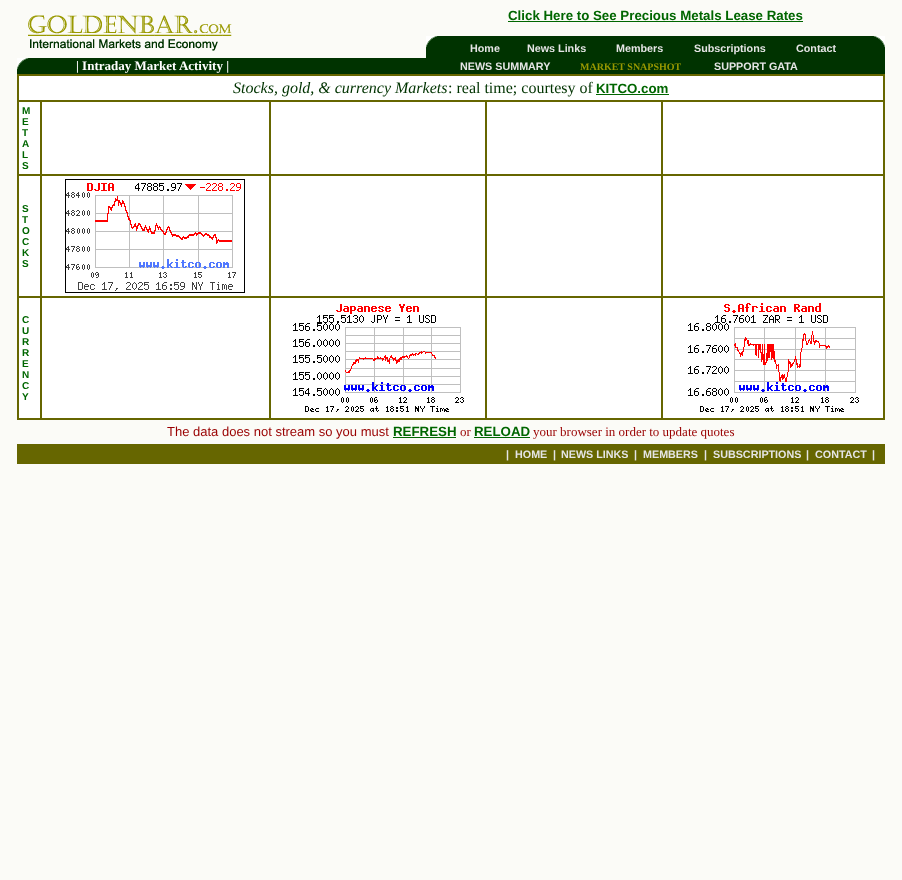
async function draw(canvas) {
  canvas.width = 902
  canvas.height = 880
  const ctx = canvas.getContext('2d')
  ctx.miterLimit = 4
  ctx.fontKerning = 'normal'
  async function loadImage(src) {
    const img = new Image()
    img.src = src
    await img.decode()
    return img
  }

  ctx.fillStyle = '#fbfbf7'
  ctx.fillRect(0, 0, 902, 880)
  ctx.drawImage(await loadImage('image0.png'), 28, 15, 204, 36)
  ctx.font = 'bold 13.3px Liberation Sans'
  ctx.fillStyle = '#060'
  ctx.fillText('Click Here to See Precious Metals Lease Rates', 508, 20)
  ctx.fillRect(508, 21, 295, 1)
  ctx.fillStyle = '#030'
  ctx.fillRect(426, 36, 459, 22)
  ctx.drawImage(await loadImage('image1.png'), 426, 36, 12, 12)
  ctx.drawImage(await loadImage('image2.png'), 873, 36, 12, 12)
  ctx.font = 'bold 10.75px Liberation Sans'
  ctx.fillStyle = '#e5e5e5'
  ctx.fillText('Home', 470, 52)
  ctx.fillText('News Links', 527, 52)
  ctx.fillText('Members', 616, 52)
  ctx.fillText('Subscriptions', 694, 52)
  ctx.fillText('Contact', 796, 52)
  ctx.fillStyle = '#030'
  ctx.fillRect(17, 58, 868, 16)
  ctx.drawImage(await loadImage('image1.png'), 17, 58, 12, 12)
  ctx.font = 'bold 13px Liberation Serif'
  ctx.fillStyle = '#fff'
  ctx.fillText('| Intraday Market Activity |', 76, 70)
  ctx.font = 'bold 10.75px Liberation Sans'
  ctx.fillStyle = '#e5e5e5'
  ctx.fillText('NEWS SUMMARY', 460, 70)
  ctx.font = 'bold 10px Liberation Serif'
  ctx.fillStyle = '#990'
  ctx.fillText('MARKET SNAPSHOT', 580, 70)
  ctx.font = 'bold 10.75px Liberation Sans'
  ctx.fillStyle = '#e5e5e5'
  ctx.fillText('SUPPORT GATA', 714, 70)
  ctx.fillStyle = '#fff'
  ctx.fillRect(19, 76, 864, 342)
  ctx.strokeStyle = '#660'
  ctx.strokeRect(17.5, 74.5, 867, 345)
  ctx.strokeRect(18.5, 75.5, 865, 25)
  ctx.font = 'italic 16px Liberation Serif'
  ctx.fillStyle = '#030'
  ctx.fillText('Stocks, gold, & currency Markets', 233, 93)
  ctx.font = '16px Liberation Serif'
  ctx.fillText(': real time; courtesy of', 448, 93)
  ctx.font = 'bold 13.3px Liberation Sans'
  ctx.fillStyle = '#060'
  ctx.fillText('KITCO.com', 596, 93)
  ctx.fillRect(596, 94, 73, 1)
  ctx.strokeRect(18.5, 101.5, 22, 73)
  ctx.font = 'bold 10px Liberation Sans'
  ctx.fillText('M', 22, 114)
  ctx.fillText('E', 22, 125)
  ctx.fillText('T', 22, 136)
  ctx.fillText('A', 22, 147)
  ctx.fillText('L', 22, 158)
  ctx.fillText('S', 22, 169)
  ctx.strokeRect(41.5, 101.5, 228, 73)
  ctx.strokeRect(270.5, 101.5, 215, 73)
  ctx.strokeRect(486.5, 101.5, 175, 73)
  ctx.strokeRect(662.5, 101.5, 221, 73)
  ctx.strokeRect(18.5, 175.5, 22, 121)
  ctx.fillText('S', 22, 212)
  ctx.fillText('T', 22, 223)
  ctx.fillText('O', 22, 234)
  ctx.fillText('C', 22, 245)
  ctx.fillText('K', 22, 256)
  ctx.fillText('S', 22, 267)
  ctx.strokeRect(41.5, 175.5, 228, 121)
  ctx.drawImage(await loadImage('image3.png'), 65, 179, 180, 114)
  ctx.strokeRect(270.5, 175.5, 215, 121)
  ctx.strokeRect(486.5, 175.5, 175, 121)
  ctx.strokeRect(662.5, 175.5, 221, 121)
  ctx.strokeRect(18.5, 297.5, 22, 121)
  ctx.fillText('C', 22, 323)
  ctx.fillText('U', 22, 334)
  ctx.fillText('R', 22, 345)
  ctx.fillText('R', 22, 356)
  ctx.fillText('E', 22, 367)
  ctx.fillText('N', 22, 378)
  ctx.fillText('C', 22, 389)
  ctx.fillText('Y', 22, 400)
  ctx.strokeRect(41.5, 297.5, 228, 121)
  ctx.strokeRect(270.5, 297.5, 215, 121)
  ctx.drawImage(await loadImage('image4.png'), 293, 304, 171, 108)
  ctx.strokeRect(486.5, 297.5, 175, 121)
  ctx.strokeRect(662.5, 297.5, 221, 121)
  ctx.drawImage(await loadImage('image5.png'), 688, 303, 171, 109)
  ctx.font = '13px Liberation Sans'
  ctx.fillStyle = '#900'
  ctx.fillText('The data does not stream so you must', 167, 436)
  ctx.font = 'bold 13.3px Liberation Sans'
  ctx.fillStyle = '#060'
  ctx.fillText('REFRESH', 393, 436)
  ctx.fillRect(393, 437, 63, 1)
  ctx.font = '13px Liberation Serif'
  ctx.fillStyle = '#900'
  ctx.fillText('or', 460, 436)
  ctx.font = 'bold 13.3px Liberation Sans'
  ctx.fillStyle = '#060'
  ctx.fillText('RELOAD', 474, 436)
  ctx.fillRect(474, 437, 56, 1)
  ctx.font = '13px Liberation Serif'
  ctx.fillStyle = '#900'
  ctx.fillText('your browser in order to update quotes', 533, 436)
  ctx.fillStyle = '#660'
  ctx.fillRect(17, 444, 868, 20)
  ctx.font = 'bold 10.75px Liberation Sans'
  ctx.fillStyle = '#e5e5e5'
  ctx.fillText('|', 506, 458)
  ctx.fillText('HOME', 515, 458)
  ctx.fillText('|', 553, 458)
  ctx.fillText('NEWS LINKS', 561, 458)
  ctx.fillText('|', 634, 458)
  ctx.fillText('MEMBERS', 643, 458)
  ctx.fillText('|', 704, 458)
  ctx.fillText('SUBSCRIPTIONS', 713, 458)
  ctx.fillText('|', 806, 458)
  ctx.fillText('CONTACT', 815, 458)
  ctx.fillText('|', 872, 458)
}

draw(document.querySelector('canvas'))
